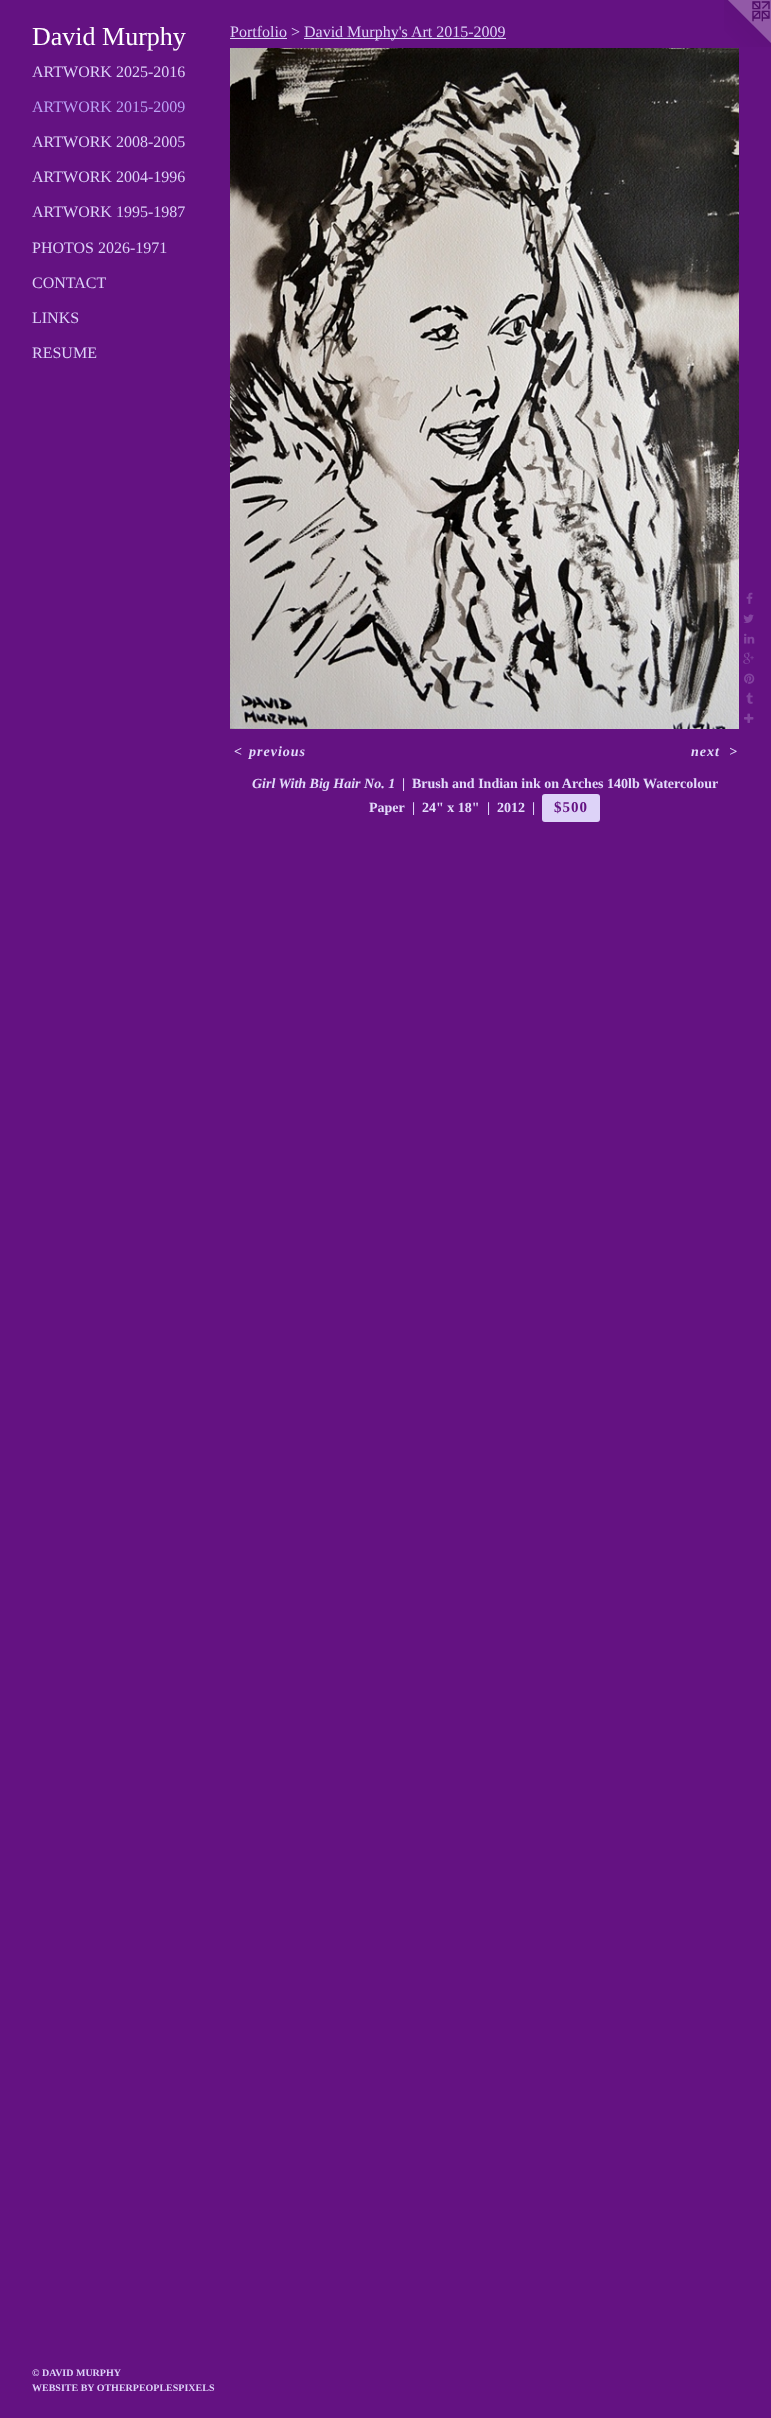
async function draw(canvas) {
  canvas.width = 771
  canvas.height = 2418
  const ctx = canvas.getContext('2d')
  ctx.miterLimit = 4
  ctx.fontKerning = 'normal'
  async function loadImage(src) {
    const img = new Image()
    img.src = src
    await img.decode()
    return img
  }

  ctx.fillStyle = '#641282'
  ctx.fillRect(0, 0, 771, 2418)
  ctx.font = '26px Liberation Serif'
  ctx.fillStyle = '#fff'
  ctx.fillText('David Murphy', 32, 45)
  ctx.font = '16px Liberation Serif'
  ctx.fillStyle = '#ddd2f9'
  ctx.fillText('ARTWORK 2025-2016', 32, 77)
  ctx.fillStyle = '#bba3f5'
  ctx.fillText('ARTWORK 2015-2009', 32, 112)
  ctx.fillStyle = '#ddd2f9'
  ctx.fillText('ARTWORK 2008-2005', 32, 147)
  ctx.fillText('ARTWORK 2004-1996', 32, 182)
  ctx.fillText('ARTWORK 1995-1987', 32, 217)
  ctx.fillText('PHOTOS 2026-1971', 32, 253)
  ctx.fillText('CONTACT', 32, 288)
  ctx.fillText('LINKS', 32, 323)
  ctx.fillText('RESUME', 32, 358)
  ctx.font = 'bold 10px Liberation Serif'
  ctx.fillText('© DAVID MURPHY', 32, 2376)
  ctx.fillText('WEBSITE BY OTHERPEOPLESPIXELS', 32, 2391)
  ctx.font = '16px Liberation Serif'
  ctx.fillText('Portfolio >', 230, 37)
  ctx.fillStyle = '#ddd7f9'
  ctx.fillRect(230, 38, 57, 1)
  ctx.fillRect(304, 38, 202, 1)
  ctx.fillStyle = '#ddd2f9'
  ctx.fillText('David Murphy\'s Art 2015-2009', 304, 37)
  ctx.drawImage(await loadImage('image0.png'), 230, 48, 509, 681)
  ctx.drawImage(await loadImage('image1.png'), 746, 592, 7, 12)
  ctx.drawImage(await loadImage('image2.png'), 743, 614, 11, 9)
  ctx.drawImage(await loadImage('image3.png'), 744, 633, 11, 11)
  ctx.drawImage(await loadImage('image4.png'), 743, 652, 11, 12)
  ctx.drawImage(await loadImage('image5.png'), 744, 673, 11, 11)
  ctx.drawImage(await loadImage('image6.png'), 746, 692, 7, 12)
  ctx.drawImage(await loadImage('image7.png'), 744, 713, 10, 10)
  ctx.letterSpacing = '1px'
  ctx.font = 'italic bold 14px Liberation Serif'
  ctx.fillStyle = '#e2dafb'
  ctx.fillText('<', 234, 756)
  ctx.fillText('previous', 249, 756)
  ctx.fillText('next', 691, 756)
  ctx.fillText('>', 729, 756)
  ctx.letterSpacing = '0px'
  ctx.fillText('Girl With Big Hair No. 1', 252, 788)
  ctx.font = 'bold 14px Liberation Serif'
  ctx.fillText('|', 402, 788)
  ctx.fillText('Brush and Indian ink on Arches 140lb Watercolour', 412, 788)
  ctx.fillText('Paper', 369, 812)
  ctx.fillText('|', 412, 812)
  ctx.fillText('24" x 18"', 422, 812)
  ctx.fillText('|', 487, 812)
  ctx.fillText('2012', 497, 812)
  ctx.fillText('|', 532, 812)
  ctx.fillStyle = '#ddd3f8'
  ctx.beginPath()
  ctx.roundRect(542, 794, 58, 28, 3)
  ctx.fill()
  ctx.letterSpacing = '1px'
  ctx.font = 'bold 15px Liberation Serif'
  ctx.fillStyle = '#641282'
  ctx.fillText('$500', 554, 812)
  ctx.drawImage(await loadImage('image8.png'), 724, 0, 47, 47)
}

draw(document.querySelector('canvas'))
